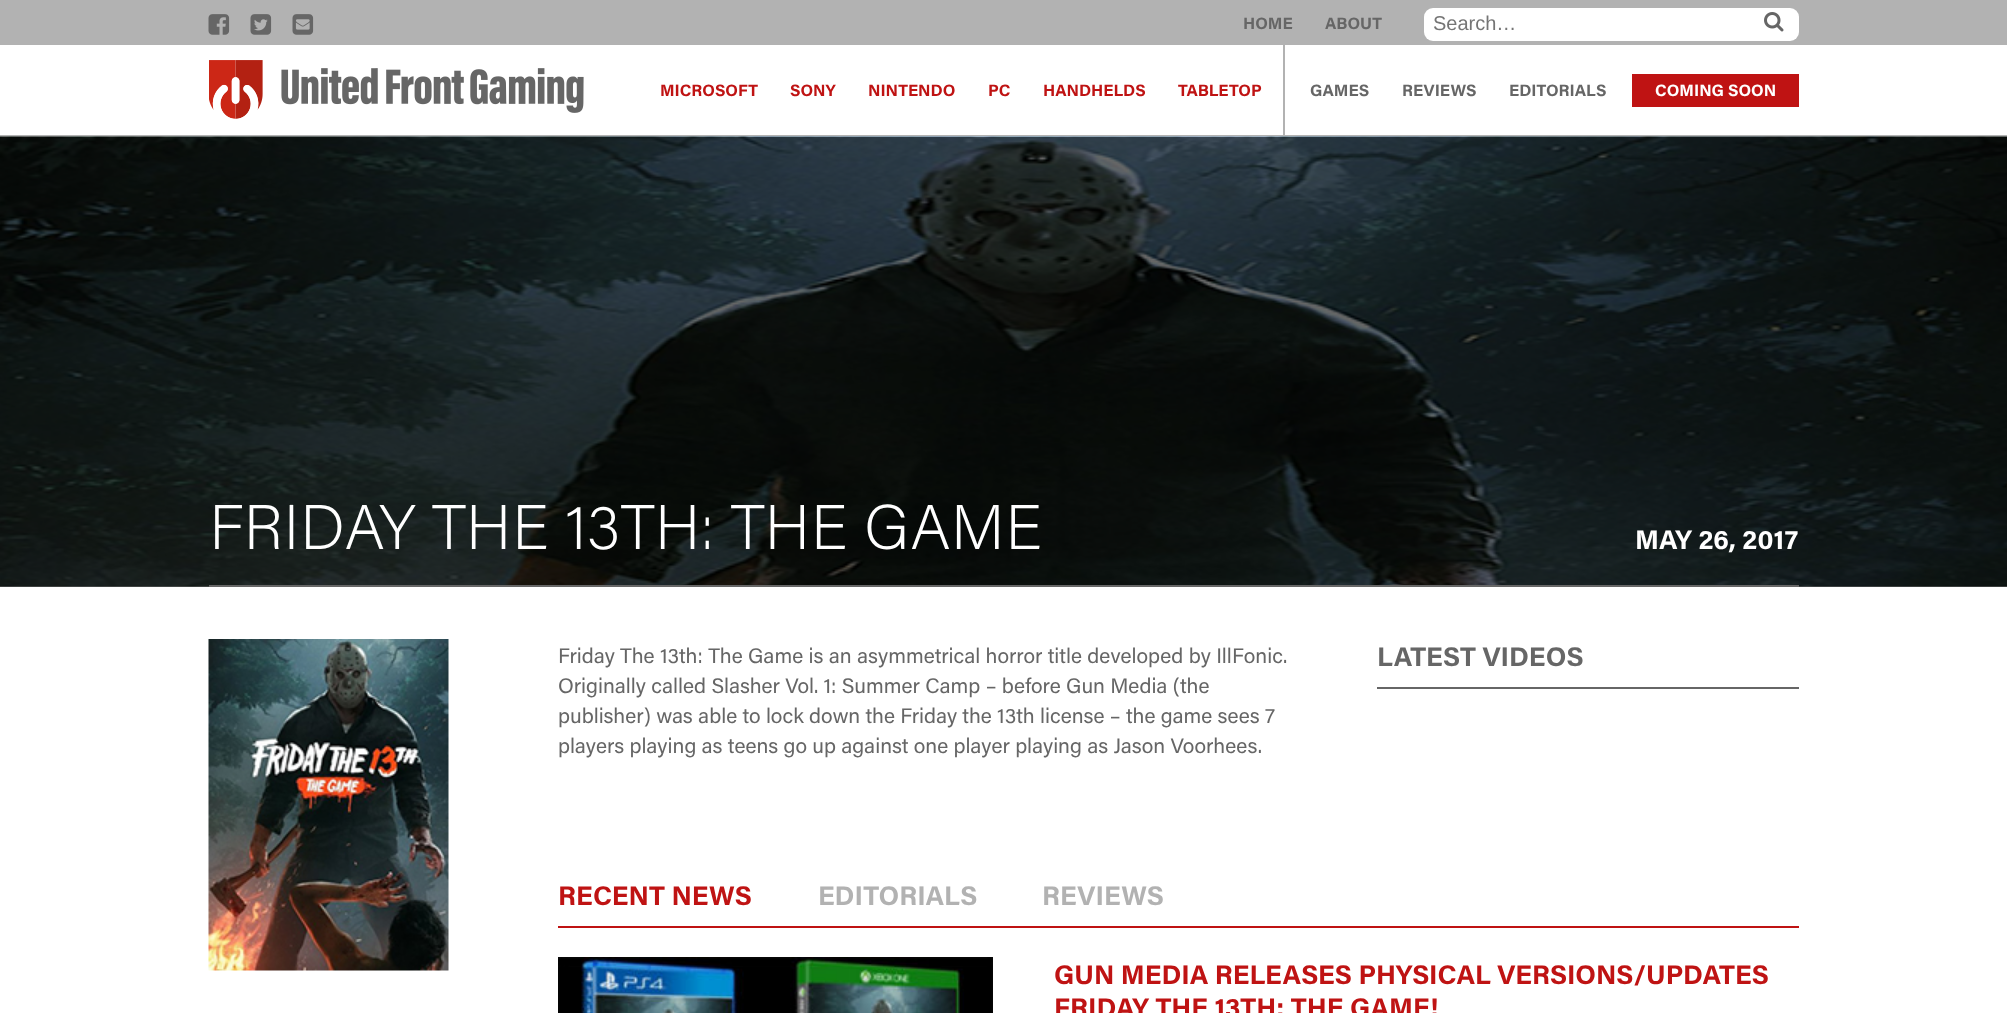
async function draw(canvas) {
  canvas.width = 2007
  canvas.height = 1013
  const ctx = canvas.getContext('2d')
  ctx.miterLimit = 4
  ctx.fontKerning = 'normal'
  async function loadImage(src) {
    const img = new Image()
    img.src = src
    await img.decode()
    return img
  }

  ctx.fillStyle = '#b2b2b2'
  ctx.fillRect(0, 0, 2007, 1013)
  ctx.drawImage(await loadImage('image0.png'), 208, 14, 22, 21)
  ctx.drawImage(await loadImage('image1.png'), 250, 14, 22, 21)
  ctx.drawImage(await loadImage('image2.png'), 292, 14, 22, 21)
  ctx.font = 'bold 16.5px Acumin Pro'
  ctx.fillStyle = '#666'
  ctx.fillText('HOME', 1243, 29)
  ctx.fillText('ABOUT', 1325, 29)
  ctx.fillStyle = '#fff'
  ctx.beginPath()
  ctx.roundRect(1424, 8, 375, 33, 9)
  ctx.fill()
  ctx.font = '20px Liberation Sans'
  ctx.fillStyle = '#757575'
  ctx.fillText('Search…', 1433, 30)
  ctx.drawImage(await loadImage('image3.png'), 1764, 12, 20, 20)
  ctx.fillStyle = '#fff'
  ctx.fillRect(0, 45, 2007, 90)
  ctx.drawImage(await loadImage('image4.png'), 209, 60, 375, 59)
  ctx.fillStyle = '#b2b2b2'
  ctx.fillRect(1283, 45, 2, 90)
  ctx.font = 'bold 16.5px Acumin Pro'
  ctx.fillStyle = '#bf1313'
  ctx.fillText('MICROSOFT', 660, 96)
  ctx.fillText('SONY', 790, 96)
  ctx.fillText('NINTENDO', 868, 96)
  ctx.fillText('PC', 988, 96)
  ctx.fillText('HANDHELDS', 1043, 96)
  ctx.fillText('TABLETOP', 1178, 96)
  ctx.fillStyle = '#666'
  ctx.fillText('GAMES', 1310, 96)
  ctx.fillText('REVIEWS', 1402, 96)
  ctx.fillText('EDITORIALS', 1509, 96)
  ctx.fillStyle = '#bf1313'
  ctx.fillRect(1632, 74, 167, 33)
  ctx.fillStyle = '#fff'
  ctx.fillText('COMING SOON', 1655, 96)
  ctx.fillRect(0, 587, 2007, 426)
  ctx.fillStyle = '#666'
  ctx.fillRect(0, 586, 2007, 1)
  ctx.drawImage(await loadImage('image5.png'), 0, 136, 2007, 451)
  ctx.fillRect(209, 585, 1590, 2)
  ctx.font = '200 63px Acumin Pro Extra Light'
  ctx.fillStyle = '#fff'
  ctx.fillText('FRIDAY THE 13TH: THE GAME', 209, 549)
  ctx.font = 'bold 27px Acumin Pro'
  ctx.fillText('MAY 26, 2017', 1635, 549)
  ctx.drawImage(await loadImage('image6.png'), 208, 639, 241, 332)
  ctx.font = '21px Acumin Pro'
  ctx.fillStyle = '#666'
  ctx.fillText('Friday The 13th: The Game is an asymmetrical horror title developed by IllFonic.', 558, 663)
  ctx.fillText('Originally called Slasher Vol. 1: Summer Camp – before Gun Media (the', 558, 693)
  ctx.fillText('publisher) was able to lock down the Friday the 13th license – the game sees 7', 558, 723)
  ctx.fillText('players playing as teens go up against one player playing as Jason Voorhees.', 558, 753)
  ctx.fillRect(1377, 687, 422, 2)
  ctx.font = 'bold 27px Acumin Pro'
  ctx.fillText('LATEST VIDEOS', 1377, 666)
  ctx.fillStyle = '#bf1313'
  ctx.fillRect(558, 926, 1241, 2)
  ctx.fillText('RECENT NEWS', 558, 905)
  ctx.fillStyle = '#b2b2b2'
  ctx.fillText('EDITORIALS', 818, 905)
  ctx.fillText('REVIEWS', 1042, 905)
  ctx.drawImage(await loadImage('image7.png'), 558, 957, 435, 56)
  ctx.fillStyle = '#bf1313'
  ctx.fillText('GUN MEDIA RELEASES PHYSICAL VERSIONS/UPDATES', 1054, 984)
  ctx.fillText('FRIDAY THE 13TH: THE GAME!', 1054, 1017)
}

draw(document.querySelector('canvas'))
